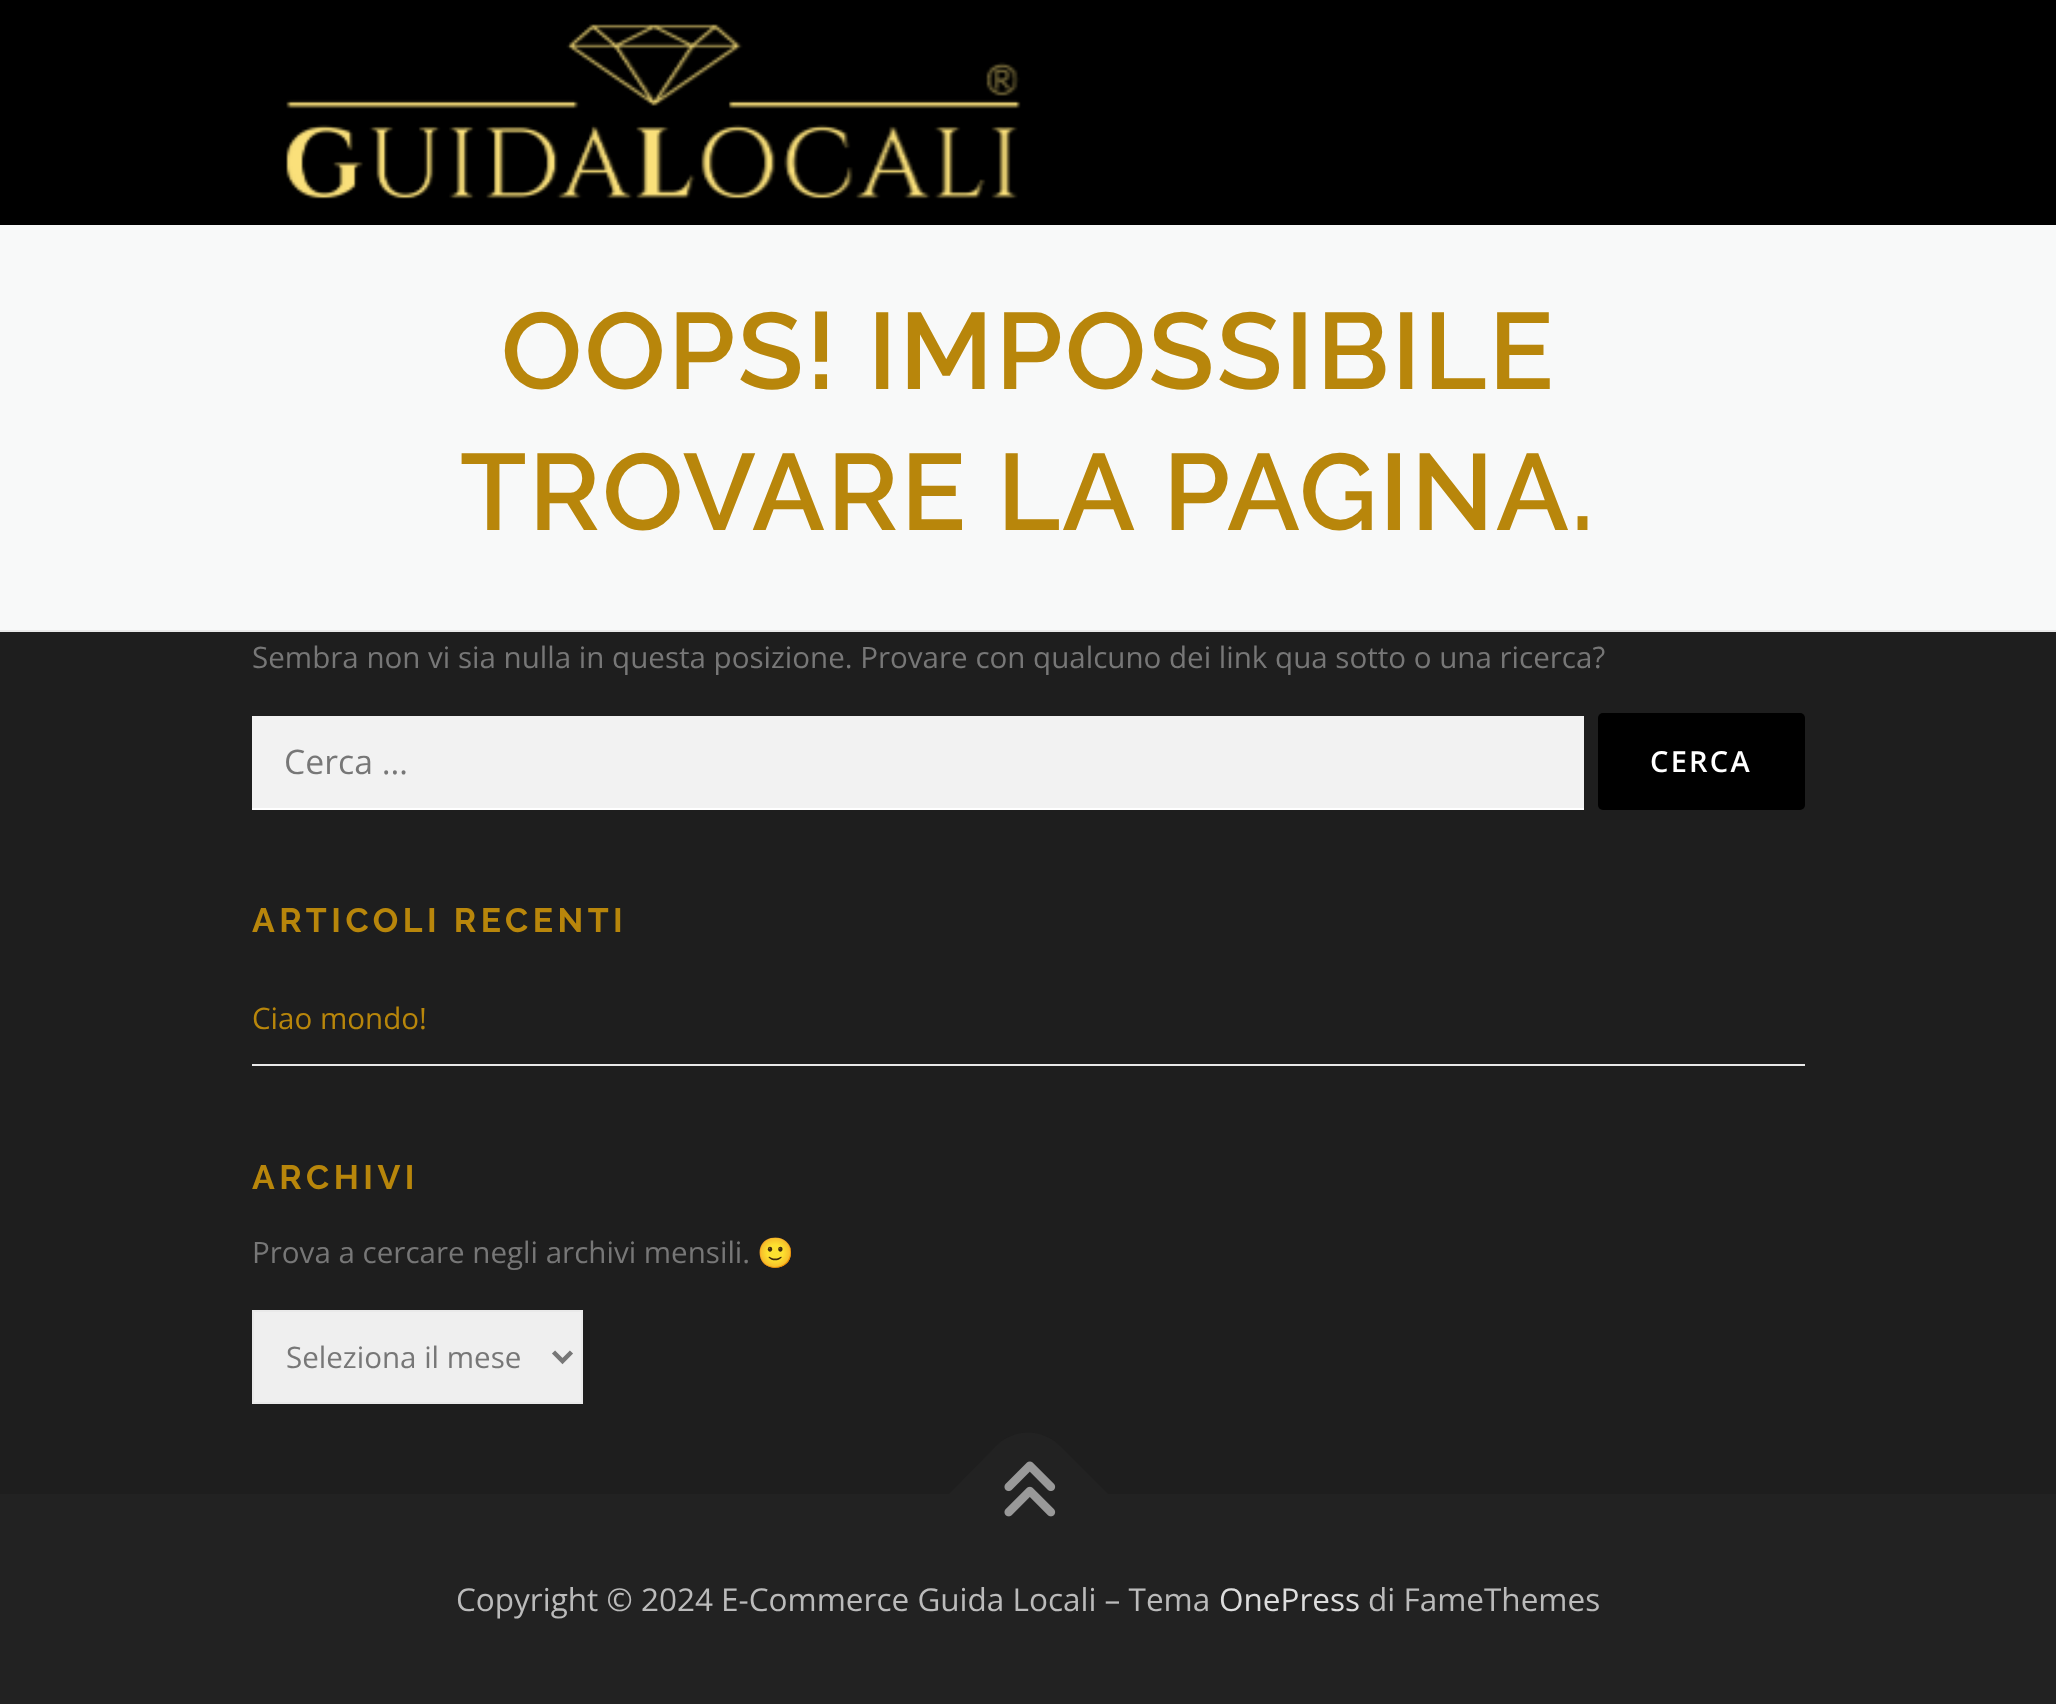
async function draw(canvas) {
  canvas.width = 2056
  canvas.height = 1704
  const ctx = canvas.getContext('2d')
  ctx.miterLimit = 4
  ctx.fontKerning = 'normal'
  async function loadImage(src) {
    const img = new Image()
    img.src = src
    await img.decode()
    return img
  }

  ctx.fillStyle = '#1e1e1e'
  ctx.fillRect(0, 0, 2056, 1704)
  ctx.fillStyle = '#000'
  ctx.fillRect(0, 0, 2056, 225)
  ctx.drawImage(await loadImage('image0.png'), 286, 24, 735, 175)
  ctx.fillStyle = '#f8f9f9'
  ctx.fillRect(0, 225, 2056, 405)
  ctx.fillStyle = '#e9e9e9'
  ctx.fillRect(0, 630, 2056, 2)
  ctx.letterSpacing = '2.25px'
  ctx.font = '600 108px Raleway'
  ctx.fillStyle = '#b8860b'
  ctx.fillText('OOPS! IMPOSSIBILE', 501, 389)
  ctx.fillText('TROVARE LA PAGINA.', 460, 530)
  ctx.letterSpacing = '0px'
  ctx.font = '29.55px Open Sans'
  ctx.fillStyle = '#777'
  ctx.fillText('Sembra non vi sia nulla in questa posizione. Provare con qualcuno dei link qua sotto o una ricerca?', 252, 668)
  ctx.fillStyle = '#f2f2f2'
  ctx.fillRect(252, 716, 1332, 92)
  ctx.fillStyle = '#fff'
  ctx.fillRect(252, 808, 1332, 2)
  ctx.font = '33.75px Open Sans'
  ctx.fillStyle = '#777'
  ctx.fillText('Cerca …', 284, 774)
  ctx.fillStyle = '#000'
  ctx.beginPath()
  ctx.roundRect(1598, 713, 207, 97, 5)
  ctx.fill()
  ctx.letterSpacing = '2.25px'
  ctx.font = '600 29px Open Sans'
  ctx.fillStyle = '#fff'
  ctx.fillText('CERCA', 1650, 772)
  ctx.letterSpacing = '4.5px'
  ctx.font = 'bold 33.75px Raleway'
  ctx.fillStyle = '#b8860b'
  ctx.fillText('ARTICOLI RECENTI', 252, 932)
  ctx.fillStyle = '#e9e9e9'
  ctx.fillRect(252, 1064, 1553, 2)
  ctx.letterSpacing = '0px'
  ctx.font = '29.55px Open Sans'
  ctx.fillStyle = '#b8860b'
  ctx.fillText('Ciao mondo!', 252, 1029)
  ctx.letterSpacing = '4.5px'
  ctx.font = 'bold 33.75px Raleway'
  ctx.fillText('ARCHIVI', 252, 1189)
  ctx.letterSpacing = '0px'
  ctx.font = '29.55px Open Sans'
  ctx.fillStyle = '#777'
  ctx.fillText('Prova a cercare negli archivi mensili.', 252, 1263)
  ctx.font = '29.55px Noto Color Emoji'
  ctx.fillText('🙂', 757, 1263)
  ctx.fillStyle = '#efefef'
  ctx.beginPath()
  ctx.rect(253, 1311, 329, 92)
  ctx.fill()
  ctx.strokeStyle = '#e9e9e9'
  ctx.lineWidth = 2
  ctx.stroke()
  ctx.beginPath()
  ctx.moveTo(553.5, 1352)
  ctx.lineTo(562.5, 1361)
  ctx.lineTo(571.5, 1352)
  ctx.strokeStyle = '#777'
  ctx.lineWidth = 4.5
  ctx.stroke()
  ctx.font = '29.55px Open Sans'
  ctx.fillStyle = '#777'
  ctx.fillText('Seleziona il mese', 286, 1368)
  ctx.fillStyle = '#222'
  ctx.fillRect(0, 1494, 2056, 210)
  ctx.beginPath()
  ctx.moveTo(949, 1494)
  ctx.lineTo(996, 1446)
  ctx.bezierCurveTo(1014, 1428, 1042, 1428, 1060, 1446)
  ctx.lineTo(1108, 1494)
  ctx.lineTo(1028, 1573)
  ctx.closePath()
  ctx.fill()
  ctx.drawImage(await loadImage('image1.png'), 1004, 1461, 52, 56)
  ctx.font = '31.5px Open Sans'
  ctx.fillStyle = '#bbb'
  ctx.fillText('Copyright © 2024 E-Commerce Guida Locali – Tema', 456, 1611)
  ctx.fillStyle = '#ddd'
  ctx.fillText('OnePress', 1219, 1611)
  ctx.fillStyle = '#bbb'
  ctx.fillText('di FameThemes', 1368, 1611)
}

draw(document.querySelector('canvas'))
